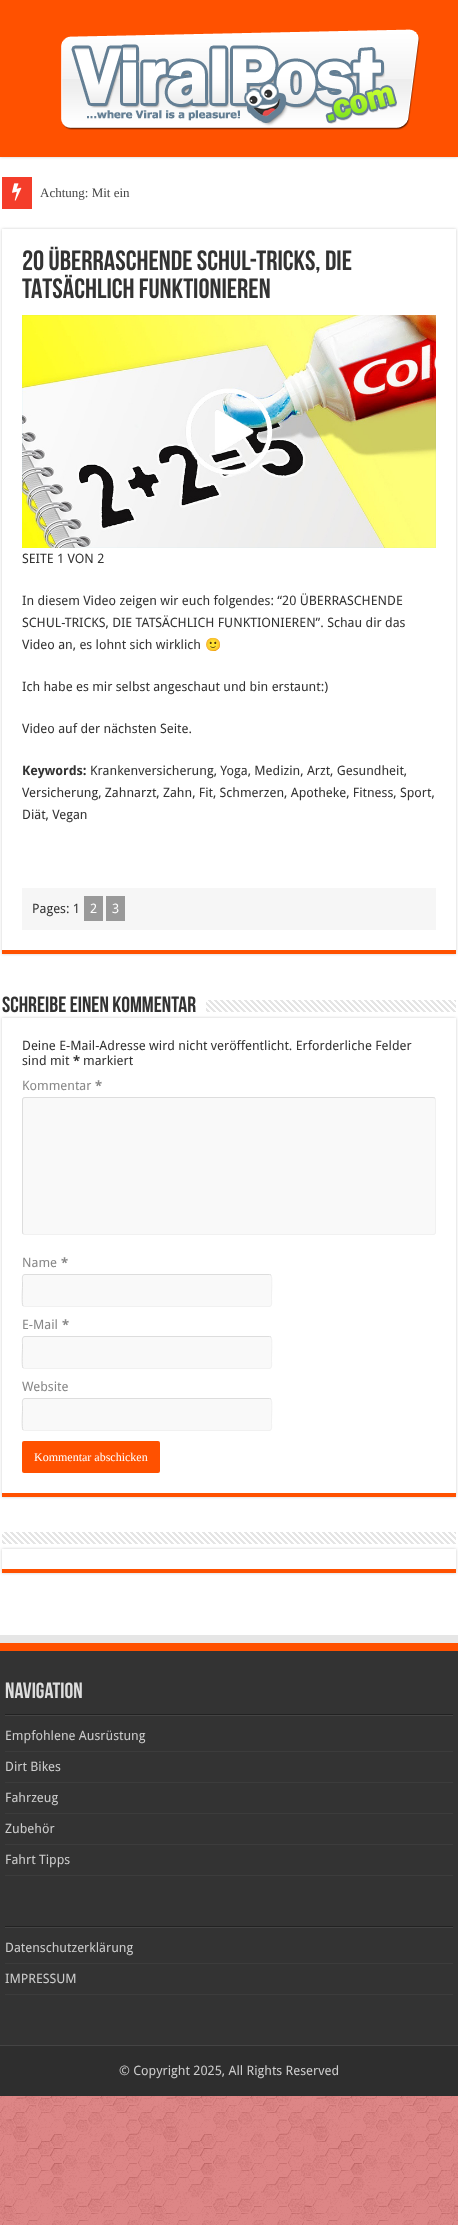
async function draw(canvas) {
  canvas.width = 458
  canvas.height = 2225
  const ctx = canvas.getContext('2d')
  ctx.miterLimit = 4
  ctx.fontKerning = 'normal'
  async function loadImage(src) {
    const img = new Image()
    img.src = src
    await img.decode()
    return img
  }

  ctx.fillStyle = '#cc4b4b'
  ctx.fillRect(0, 0, 458, 2225)
  ctx.drawImage(await loadImage('image0.png'), 0, 2096, 458, 129)
  ctx.fillStyle = '#fff'
  ctx.fillRect(0, 157, 458, 1478)
  ctx.fillStyle = '#cacaca'
  ctx.filter = 'blur(1.5px)'
  ctx.beginPath()
  ctx.rect(0, 0, 458, 157)
  ctx.fill()
  ctx.filter = 'none'
  ctx.fillStyle = '#ff5100'
  ctx.fillRect(0, 0, 458, 157)
  ctx.drawImage(await loadImage('image1.png'), 61, 29, 359, 101)
  ctx.fillStyle = '#f43d2a'
  ctx.fillRect(2, 177, 30, 32)
  ctx.drawImage(await loadImage('image2.png'), 12, 183, 10, 18)
  ctx.font = '13px Liberation Serif'
  ctx.fillStyle = '#444'
  ctx.fillText('Achtung: Mit ein', 40, 197)
  ctx.save()
  ctx.beginPath()
  ctx.moveTo(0, 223)
  ctx.lineTo(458, 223)
  ctx.lineTo(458, 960)
  ctx.lineTo(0, 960)
  ctx.closePath()
  ctx.moveTo(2, 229)
  ctx.lineTo(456, 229)
  ctx.lineTo(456, 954)
  ctx.lineTo(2, 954)
  ctx.closePath()
  ctx.clip('evenodd')
  ctx.fillStyle = '#cacaca'
  ctx.filter = 'blur(1.5px)'
  ctx.beginPath()
  ctx.rect(2, 229, 454, 725)
  ctx.fill()
  ctx.filter = 'none'
  ctx.restore()
  ctx.fillStyle = '#ff5100'
  ctx.fillRect(2, 950, 454, 4)
  ctx.font = 'bold 28px Bebas Neue'
  ctx.fillStyle = '#333'
  ctx.fillText('20 ÜBERRASCHENDE SCHUL-TRICKS, DIE', 22, 270)
  ctx.fillText('TATSÄCHLICH FUNKTIONIEREN', 22, 298)
  ctx.drawImage(await loadImage('image3.png'), 22, 315, 414, 233)
  ctx.font = '13px Droid Sans'
  ctx.fillText('SEITE 1 VON 2', 22, 563)
  ctx.fillText('In diesem Video zeigen wir euch folgendes: “20 ÜBERRASCHENDE', 22, 605)
  ctx.fillText('SCHUL-TRICKS, DIE TATSÄCHLICH FUNKTIONIEREN”. Schau dir das', 22, 627)
  ctx.fillText('Video an, es lohnt sich wirklich', 22, 649)
  ctx.font = '13px Noto Color Emoji'
  ctx.fillText('🙂', 205, 649)
  ctx.font = '13px Droid Sans'
  ctx.fillText('Ich habe es mir selbst angeschaut und bin erstaunt:)', 22, 691)
  ctx.fillText('Video auf der nächsten Seite.', 22, 733)
  ctx.font = 'bold 13px Droid Sans'
  ctx.fillText('Keywords:', 22, 775)
  ctx.font = '13px Droid Sans'
  ctx.fillText('Krankenversicherung, Yoga, Medizin, Arzt, Gesundheit,', 90, 775)
  ctx.fillText('Versicherung, Zahnarzt, Zahn, Fit, Schmerzen, Apotheke, Fitness, Sport,', 22, 797)
  ctx.fillText('Diät, Vegan', 22, 819)
  ctx.fillStyle = '#f6f6f6'
  ctx.fillRect(22, 888, 414, 42)
  ctx.fillStyle = '#333'
  ctx.fillText('Pages: 1', 32, 913)
  ctx.fillStyle = '#999'
  ctx.fillRect(84, 896, 19, 25)
  ctx.fillStyle = '#fff'
  ctx.fillText('2', 90, 913)
  ctx.fillStyle = '#999'
  ctx.fillRect(106, 896, 19, 25)
  ctx.fillStyle = '#fff'
  ctx.fillText('3', 112, 913)
  ctx.font = 'bold 22px Bebas Neue'
  ctx.fillStyle = '#333'
  ctx.fillText('Schreibe einen Kommentar', 2, 1012)
  ctx.drawImage(await loadImage('image4.png'), 206, 1000, 250, 12)
  ctx.save()
  ctx.beginPath()
  ctx.moveTo(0, 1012)
  ctx.lineTo(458, 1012)
  ctx.lineTo(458, 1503)
  ctx.lineTo(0, 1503)
  ctx.closePath()
  ctx.moveTo(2, 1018)
  ctx.lineTo(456, 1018)
  ctx.lineTo(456, 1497)
  ctx.lineTo(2, 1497)
  ctx.closePath()
  ctx.clip('evenodd')
  ctx.fillStyle = '#cacaca'
  ctx.filter = 'blur(1.5px)'
  ctx.beginPath()
  ctx.rect(2, 1018, 454, 479)
  ctx.fill()
  ctx.filter = 'none'
  ctx.restore()
  ctx.fillStyle = '#ff5100'
  ctx.fillRect(2, 1493, 454, 4)
  ctx.font = '13px Droid Sans'
  ctx.fillStyle = '#333'
  ctx.fillText('Deine E-Mail-Adresse wird nicht veröffentlicht. Erforderliche Felder', 22, 1050)
  ctx.fillText('sind mit', 22, 1065)
  ctx.font = 'bold 13px Droid Sans'
  ctx.fillText('*', 73, 1065)
  ctx.font = '13px Droid Sans'
  ctx.fillText('markiert', 83, 1065)
  ctx.fillStyle = '#888'
  ctx.fillText('Kommentar', 22, 1090)
  ctx.font = 'bold 13px Droid Sans'
  ctx.fillText('*', 95, 1090)
  ctx.fillStyle = '#f9f9f9'
  ctx.beginPath()
  ctx.roundRect(22, 1097, 414, 138, 3)
  ctx.fill()
  ctx.beginPath()
  ctx.moveTo(435, 1098)
  ctx.lineTo(435.5, 1100)
  ctx.lineTo(435.5, 1232)
  ctx.lineTo(435, 1234)
  ctx.lineTo(433, 1234.5)
  ctx.lineTo(25, 1234.5)
  ctx.lineTo(23, 1234)
  ctx.strokeStyle = '#f1f1f1'
  ctx.stroke()
  ctx.beginPath()
  ctx.moveTo(23, 1234)
  ctx.lineTo(22.5, 1232)
  ctx.lineTo(22.5, 1100)
  ctx.lineTo(23, 1098)
  ctx.lineTo(25, 1097.5)
  ctx.lineTo(433, 1097.5)
  ctx.lineTo(435, 1098)
  ctx.strokeStyle = '#ddd'
  ctx.stroke()
  ctx.font = '13px Droid Sans'
  ctx.fillStyle = '#888'
  ctx.fillText('Name', 22, 1267)
  ctx.font = 'bold 13px Droid Sans'
  ctx.fillText('*', 61, 1267)
  ctx.fillStyle = '#f9f9f9'
  ctx.beginPath()
  ctx.roundRect(22, 1274, 250, 33, 3)
  ctx.fill()
  ctx.beginPath()
  ctx.moveTo(271, 1275)
  ctx.bezierCurveTo(272.5, 1277, 271.5, 1292, 271.5, 1295)
  ctx.lineTo(271.5, 1299.5)
  ctx.bezierCurveTo(271.5, 1301.5, 272.5, 1306.5, 269, 1306.5)
  ctx.lineTo(24.5, 1306.5)
  ctx.lineTo(23, 1306)
  ctx.strokeStyle = '#f1f1f1'
  ctx.stroke()
  ctx.beginPath()
  ctx.moveTo(23, 1306)
  ctx.bezierCurveTo(21.5, 1304, 22.5, 1289, 22.5, 1286)
  ctx.lineTo(22.5, 1281.5)
  ctx.bezierCurveTo(22.5, 1279.5, 21.5, 1274.5, 25, 1274.5)
  ctx.lineTo(269.5, 1274.5)
  ctx.lineTo(271, 1275)
  ctx.strokeStyle = '#ddd'
  ctx.stroke()
  ctx.font = '13px Droid Sans'
  ctx.fillStyle = '#888'
  ctx.fillText('E-Mail', 22, 1329)
  ctx.font = 'bold 13px Droid Sans'
  ctx.fillText('*', 62, 1329)
  ctx.fillStyle = '#f9f9f9'
  ctx.beginPath()
  ctx.roundRect(22, 1336, 250, 33, 3)
  ctx.fill()
  ctx.beginPath()
  ctx.moveTo(271, 1337)
  ctx.bezierCurveTo(272.5, 1339, 271.5, 1354, 271.5, 1357)
  ctx.lineTo(271.5, 1361.5)
  ctx.bezierCurveTo(271.5, 1363.5, 272.5, 1368.5, 269, 1368.5)
  ctx.lineTo(24.5, 1368.5)
  ctx.lineTo(23, 1368)
  ctx.strokeStyle = '#f1f1f1'
  ctx.stroke()
  ctx.beginPath()
  ctx.moveTo(23, 1368)
  ctx.bezierCurveTo(21.5, 1366, 22.5, 1351, 22.5, 1348)
  ctx.lineTo(22.5, 1343.5)
  ctx.bezierCurveTo(22.5, 1341.5, 21.5, 1336.5, 25, 1336.5)
  ctx.lineTo(269.5, 1336.5)
  ctx.lineTo(271, 1337)
  ctx.strokeStyle = '#ddd'
  ctx.stroke()
  ctx.font = '13px Droid Sans'
  ctx.fillStyle = '#888'
  ctx.fillText('Website', 22, 1391)
  ctx.fillStyle = '#f9f9f9'
  ctx.beginPath()
  ctx.roundRect(22, 1398, 250, 33, 3)
  ctx.fill()
  ctx.beginPath()
  ctx.moveTo(271, 1399)
  ctx.bezierCurveTo(272.5, 1401, 271.5, 1416, 271.5, 1419)
  ctx.lineTo(271.5, 1423.5)
  ctx.bezierCurveTo(271.5, 1425.5, 272.5, 1430.5, 269, 1430.5)
  ctx.lineTo(24.5, 1430.5)
  ctx.lineTo(23, 1430)
  ctx.strokeStyle = '#f1f1f1'
  ctx.stroke()
  ctx.beginPath()
  ctx.moveTo(23, 1430)
  ctx.bezierCurveTo(21.5, 1428, 22.5, 1413, 22.5, 1410)
  ctx.lineTo(22.5, 1405.5)
  ctx.bezierCurveTo(22.5, 1403.5, 21.5, 1398.5, 25, 1398.5)
  ctx.lineTo(269.5, 1398.5)
  ctx.lineTo(271, 1399)
  ctx.strokeStyle = '#ddd'
  ctx.stroke()
  ctx.fillStyle = '#ff5100'
  ctx.beginPath()
  ctx.roundRect(22, 1441, 138, 32, 2)
  ctx.fill()
  ctx.font = '12px Liberation Serif'
  ctx.fillStyle = '#fff'
  ctx.fillText('Kommentar abschicken', 34, 1461)
  ctx.save()
  ctx.beginPath()
  ctx.moveTo(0, 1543)
  ctx.lineTo(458, 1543)
  ctx.lineTo(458, 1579)
  ctx.lineTo(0, 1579)
  ctx.closePath()
  ctx.moveTo(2, 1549)
  ctx.lineTo(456, 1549)
  ctx.lineTo(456, 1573)
  ctx.lineTo(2, 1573)
  ctx.closePath()
  ctx.clip('evenodd')
  ctx.fillStyle = '#cacaca'
  ctx.filter = 'blur(1.5px)'
  ctx.beginPath()
  ctx.rect(2, 1549, 454, 24)
  ctx.fill()
  ctx.filter = 'none'
  ctx.restore()
  ctx.drawImage(await loadImage('image5.png'), 2, 1532, 454, 12)
  ctx.fillStyle = '#ff5100'
  ctx.fillRect(2, 1569, 454, 4)
  ctx.fillStyle = '#e6e6e6'
  ctx.fillRect(0, 1635, 458, 8)
  ctx.fillStyle = '#333'
  ctx.fillRect(0, 1651, 458, 394)
  ctx.fillStyle = '#ff5100'
  ctx.fillRect(0, 1643, 458, 8)
  ctx.fillStyle = '#222'
  ctx.fillRect(5, 1714, 448, 1)
  ctx.font = 'bold 22px Bebas Neue'
  ctx.fillStyle = '#ddd'
  ctx.fillText('Navigation', 5, 1698)
  ctx.fillStyle = '#444'
  ctx.fillRect(5, 1715, 448, 1)
  ctx.fillStyle = '#3c3c3c'
  ctx.fillRect(5, 1751, 448, 1)
  ctx.font = '13px Droid Sans'
  ctx.fillStyle = '#ccc'
  ctx.fillText('Empfohlene Ausrüstung', 5, 1740)
  ctx.fillStyle = '#3c3c3c'
  ctx.fillRect(5, 1782, 448, 1)
  ctx.fillStyle = '#ccc'
  ctx.fillText('Dirt Bikes', 5, 1771)
  ctx.fillStyle = '#3c3c3c'
  ctx.fillRect(5, 1813, 448, 1)
  ctx.fillStyle = '#ccc'
  ctx.fillText('Fahrzeug', 5, 1802)
  ctx.fillStyle = '#3c3c3c'
  ctx.fillRect(5, 1844, 448, 1)
  ctx.fillStyle = '#ccc'
  ctx.fillText('Zubehör', 5, 1833)
  ctx.fillStyle = '#3c3c3c'
  ctx.fillRect(5, 1875, 448, 1)
  ctx.fillStyle = '#ccc'
  ctx.fillText('Fahrt Tipps', 5, 1864)
  ctx.fillStyle = '#222'
  ctx.fillRect(5, 1926, 448, 1)
  ctx.fillStyle = '#444'
  ctx.fillRect(5, 1927, 448, 1)
  ctx.fillStyle = '#3c3c3c'
  ctx.fillRect(5, 1963, 448, 1)
  ctx.fillStyle = '#ccc'
  ctx.fillText('Datenschutzerklärung', 5, 1952)
  ctx.fillStyle = '#3c3c3c'
  ctx.fillRect(5, 1994, 448, 1)
  ctx.fillStyle = '#ccc'
  ctx.fillText('IMPRESSUM', 5, 1983)
  ctx.fillStyle = '#2e2e2e'
  ctx.fillRect(0, 2046, 458, 50)
  ctx.fillStyle = '#444'
  ctx.fillRect(0, 2045, 458, 1)
  ctx.fillStyle = '#ccc'
  ctx.fillText('© Copyright 2025, All Rights Reserved', 119, 2075)
}

draw(document.querySelector('canvas'))
